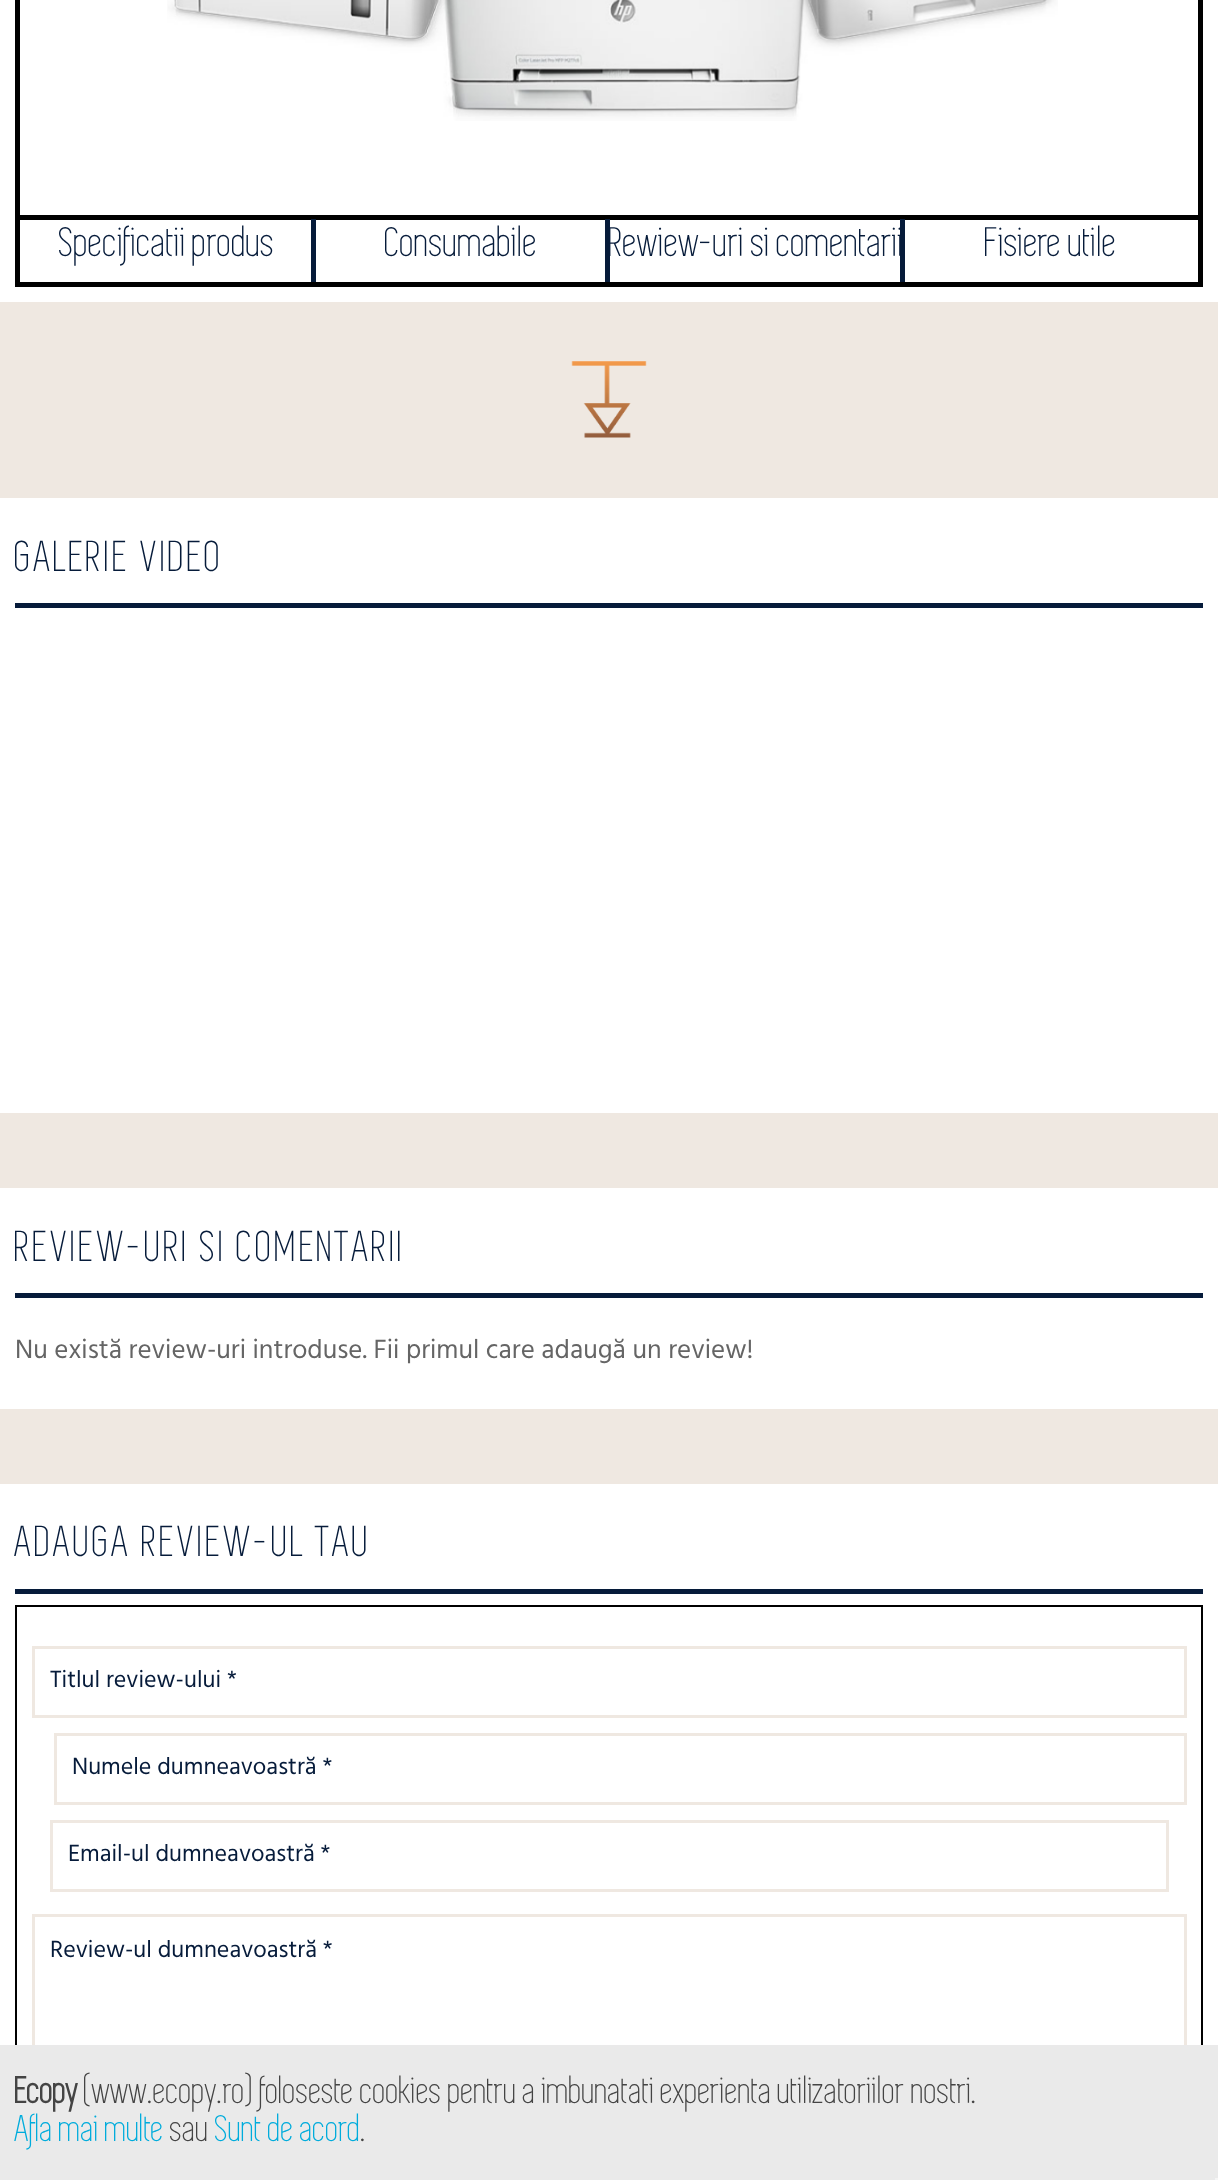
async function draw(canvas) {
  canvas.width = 1218
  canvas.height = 2180
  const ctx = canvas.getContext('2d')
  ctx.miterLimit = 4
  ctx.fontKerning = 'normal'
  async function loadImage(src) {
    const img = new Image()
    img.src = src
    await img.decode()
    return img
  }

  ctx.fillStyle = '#efe8e1'
  ctx.fillRect(0, 0, 1218, 2180)
  ctx.fillStyle = '#fff'
  ctx.fillRect(0, 0, 1218, 302)
  ctx.strokeStyle = '#000'
  ctx.lineWidth = 5
  ctx.strokeRect(17.5, -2.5, 1183, 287)
  ctx.drawImage(await loadImage('image0.png'), 167, 0, 891, 121)
  ctx.fillStyle = '#000'
  ctx.fillRect(20, 215, 885, 5)
  ctx.font = '42.75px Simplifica'
  ctx.fillStyle = '#061b3a'
  ctx.fillText('Specificatii produs', 59, 256)
  ctx.fillRect(311, 219, 5, 63)
  ctx.fillText('Consumabile', 385, 256)
  ctx.fillRect(605, 219, 5, 63)
  ctx.fillText('Rewiew-uri si comentarii', 609, 256)
  ctx.fillRect(900, 219, 5, 63)
  ctx.fillStyle = '#000'
  ctx.fillRect(905, 215, 294, 5)
  ctx.fillStyle = '#061b3a'
  ctx.fillText('Fisiere utile', 985, 256)
  ctx.drawImage(await loadImage('image1.png'), 571, 361, 76, 77)
  ctx.fillStyle = '#fff'
  ctx.fillRect(0, 498, 1218, 615)
  ctx.fillStyle = '#061b3a'
  ctx.fillRect(15, 603, 1188, 5)
  ctx.letterSpacing = '3px'
  ctx.font = '45px Simplifica'
  ctx.fillText('GALERIE VIDEO', 15, 571)
  ctx.fillStyle = '#fff'
  ctx.fillRect(0, 1188, 1218, 221)
  ctx.fillStyle = '#061b3a'
  ctx.fillRect(15, 1293, 1188, 5)
  ctx.fillText('REVIEW-URI SI COMENTARII', 15, 1261)
  ctx.letterSpacing = '0px'
  ctx.font = '27px Hind'
  ctx.fillStyle = '#656565'
  ctx.fillText('Nu există review-uri introduse. Fii primul care adaugă un review!', 15, 1358)
  ctx.fillStyle = '#fff'
  ctx.fillRect(0, 1484, 1218, 561)
  ctx.fillStyle = '#061b3a'
  ctx.fillRect(15, 1589, 1188, 5)
  ctx.letterSpacing = '3px'
  ctx.font = '45px Simplifica'
  ctx.fillText('ADAUGA REVIEW-UL TAU', 15, 1556)
  ctx.lineWidth = 2
  ctx.strokeRect(16, 1606, 1186, 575)
  ctx.strokeStyle = '#efe8e1'
  ctx.lineWidth = 3
  ctx.strokeRect(33.5, 1647.5, 1152, 69)
  ctx.letterSpacing = '0px'
  ctx.font = '24px Hind'
  ctx.fillText('Titlul review-ului *', 50, 1687)
  ctx.strokeRect(55.5, 1734.5, 1130, 69)
  ctx.fillText('Numele dumneavoastră *', 72, 1774)
  ctx.strokeRect(51.5, 1821.5, 1116, 69)
  ctx.fillText('Email-ul dumneavoastră *', 68, 1861)
  ctx.strokeRect(33.5, 1915.5, 1152, 222)
  ctx.fillText('Review-ul dumneavoastră *', 50, 1957)
  ctx.fillStyle = '#eaeaea'
  ctx.fillRect(0, 2045, 1218, 135)
  ctx.font = 'bold 38.4px Simplifica'
  ctx.fillStyle = '#444'
  ctx.fillText('Ecopy', 15, 2103)
  ctx.font = '38.4px Simplifica'
  ctx.fillText('(www.ecopy.ro) foloseste cookies pentru a imbunatati experienta utilizatoriilor nostri.', 84, 2103)
  ctx.fillStyle = '#00acdc'
  ctx.fillText('Afla mai multe', 15, 2141)
  ctx.fillStyle = '#444'
  ctx.fillText('sau', 170, 2141)
  ctx.fillStyle = '#00acdc'
  ctx.fillText('Sunt de acord', 215, 2141)
  ctx.fillStyle = '#444'
  ctx.fillText('.', 361, 2141)
  ctx.fillStyle = '#f5f5f5'
  ctx.fillRect(1215, 2178, 3, 2)
}

draw(document.querySelector('canvas'))
